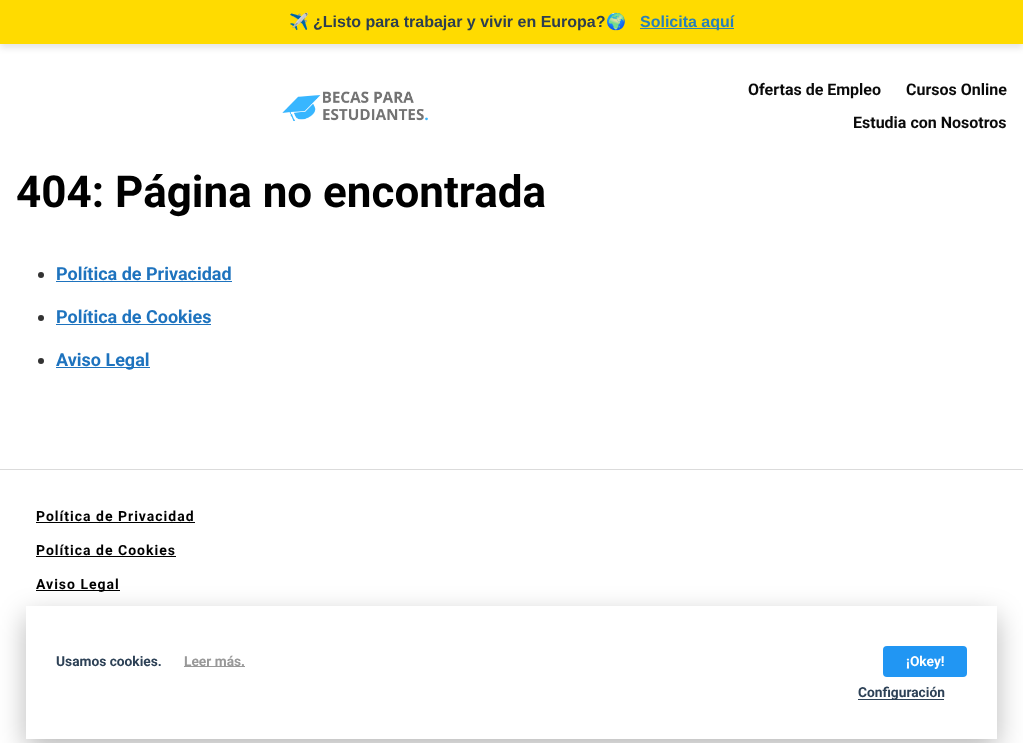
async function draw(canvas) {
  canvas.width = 1023
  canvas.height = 743
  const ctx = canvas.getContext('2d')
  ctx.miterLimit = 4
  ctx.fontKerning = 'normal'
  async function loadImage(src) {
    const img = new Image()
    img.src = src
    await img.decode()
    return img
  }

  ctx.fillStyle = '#fff'
  ctx.fillRect(0, 0, 1023, 743)
  ctx.fillStyle = '#0000001a'
  ctx.filter = 'blur(3px)'
  ctx.beginPath()
  ctx.rect(0, 4, 1023, 44)
  ctx.fill()
  ctx.filter = 'none'
  ctx.fillStyle = '#ffdb00'
  ctx.fillRect(0, 0, 1023, 44)
  ctx.font = 'bold 16px Noto Color Emoji'
  ctx.fillStyle = '#2c3e50'
  ctx.fillText('✈️', 289, 27)
  ctx.font = 'bold 16px Liberation Sans'
  ctx.fillText('¿Listo para trabajar y vivir en Europa?', 313, 27)
  ctx.font = 'bold 16px Noto Color Emoji'
  ctx.fillText('🌍', 606, 27)
  ctx.fillStyle = '#2980b9'
  ctx.fillRect(640, 28, 94, 1)
  ctx.font = 'bold 16px Liberation Sans'
  ctx.fillText('Solicita aquí', 640, 27)
  ctx.drawImage(await loadImage('image0.png'), 282, 91, 146, 30)
  ctx.font = 'bold 16px Roboto'
  ctx.fillStyle = '#0a0a0a'
  ctx.fillText('Ofertas de Empleo', 748, 95)
  ctx.fillText('Cursos Online', 906, 95)
  ctx.fillText('Estudia con Nosotros', 853, 128)
  ctx.font = 'bold 44px Roboto'
  ctx.fillStyle = '#000'
  ctx.fillText('404: Página no encontrada', 16, 207)
  ctx.fillStyle = '#333'
  ctx.beginPath()
  ctx.arc(41, 275, 3, 0, 2 * Math.PI)
  ctx.fill()
  ctx.font = 'bold 18px Roboto'
  ctx.fillStyle = '#1e73be'
  ctx.fillText('Política de Privacidad', 56, 280)
  ctx.fillRect(56, 281, 176, 1)
  ctx.fillStyle = '#333'
  ctx.beginPath()
  ctx.arc(41, 318, 3, 0, 2 * Math.PI)
  ctx.fill()
  ctx.fillStyle = '#1e73be'
  ctx.fillText('Política de Cookies', 56, 323)
  ctx.fillRect(56, 324, 155, 1)
  ctx.fillStyle = '#333'
  ctx.beginPath()
  ctx.arc(41, 361, 3, 0, 2 * Math.PI)
  ctx.fill()
  ctx.fillStyle = '#1e73be'
  ctx.fillRect(56, 367, 94, 1)
  ctx.fillText('Aviso Legal', 56, 366)
  ctx.fillStyle = '#dbdbdb'
  ctx.fillRect(0, 469, 1023, 1)
  ctx.letterSpacing = '1px'
  ctx.font = 'bold 14px Roboto'
  ctx.fillStyle = '#000'
  ctx.fillText('Política de Privacidad', 36, 521)
  ctx.fillRect(36, 522, 159, 1)
  ctx.fillText('Política de Cookies', 36, 555)
  ctx.fillRect(36, 556, 140, 1)
  ctx.fillRect(36, 590, 84, 1)
  ctx.fillText('Aviso Legal', 36, 589)
  ctx.fillStyle = '#02020347'
  ctx.filter = 'blur(14px)'
  ctx.beginPath()
  ctx.rect(26, 616, 971, 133)
  ctx.fill()
  ctx.filter = 'none'
  ctx.fillStyle = '#fff'
  ctx.fillRect(26, 606, 971, 133)
  ctx.letterSpacing = '0px'
  ctx.font = 'bold 13.75px Roboto'
  ctx.fillStyle = '#2d4156'
  ctx.fillText('Usamos cookies.', 56, 666)
  ctx.fillStyle = '#999'
  ctx.fillRect(184, 666, 61, 1)
  ctx.fillText('Leer más.', 184, 666)
  ctx.fillStyle = '#2196f3'
  ctx.beginPath()
  ctx.roundRect(883, 646, 84, 31, 4)
  ctx.fill()
  ctx.fillStyle = '#fff'
  ctx.fillText('¡Okey!', 906, 666)
  ctx.fillStyle = '#2d4156'
  ctx.fillRect(858, 699, 86, 1)
  ctx.fillText('Configuración', 858, 697)
}

draw(document.querySelector('canvas'))
